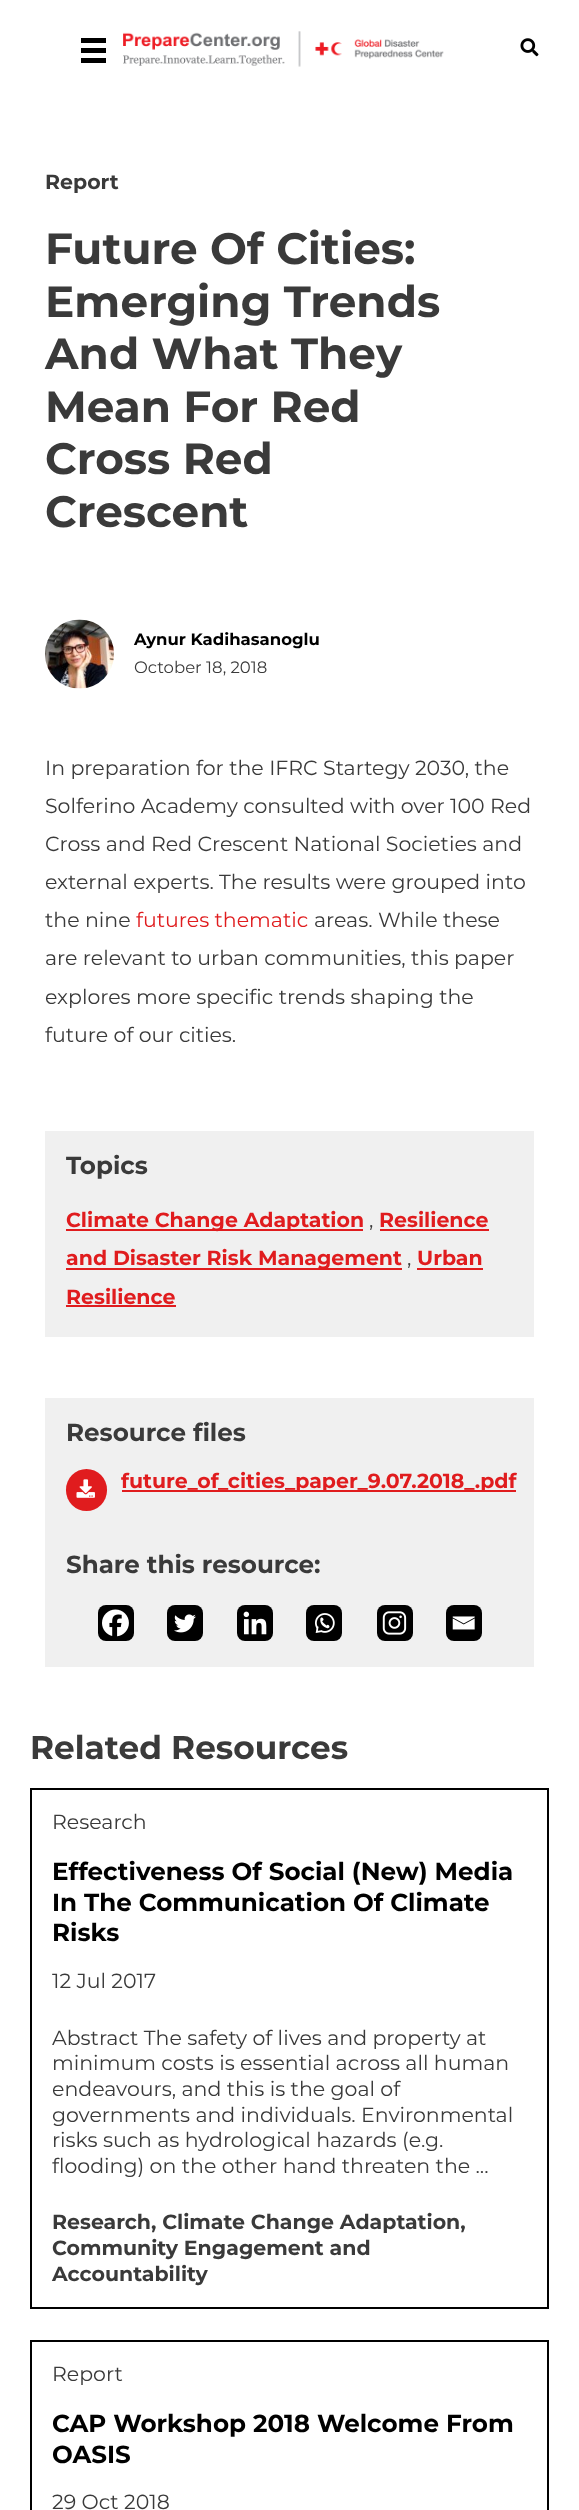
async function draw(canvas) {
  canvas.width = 579
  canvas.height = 2510
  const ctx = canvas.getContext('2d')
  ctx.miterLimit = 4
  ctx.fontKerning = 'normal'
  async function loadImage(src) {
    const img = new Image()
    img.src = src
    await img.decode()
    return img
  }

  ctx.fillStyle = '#fff'
  ctx.fillRect(0, 0, 579, 2510)
  ctx.fillStyle = '#000'
  ctx.fillRect(81, 38, 25, 5)
  ctx.fillRect(81, 48, 25, 5)
  ctx.fillRect(81, 58, 25, 5)
  ctx.drawImage(await loadImage('image0.png'), 123, 31, 321, 36)
  ctx.drawImage(await loadImage('image1.png'), 520, 38, 19, 19)
  ctx.font = 'bold 20.5px Montserrat'
  ctx.fillStyle = '#3a3a3a'
  ctx.fillText('Report', 45, 189)
  ctx.font = 'bold 43.75px Montserrat'
  ctx.fillText('Future Of Cities:', 45, 264)
  ctx.fillText('Emerging Trends', 45, 317)
  ctx.fillText('And What They', 45, 369)
  ctx.fillText('Mean For Red', 45, 422)
  ctx.fillText('Cross Red', 45, 474)
  ctx.fillText('Crescent', 45, 527)
  ctx.drawImage(await loadImage('image2.png'), 45, 619, 69, 70)
  ctx.font = 'bold 16.5px Montserrat'
  ctx.fillStyle = '#000'
  ctx.fillText('Aynur Kadihasanoglu', 134, 645)
  ctx.font = '16.5px Montserrat'
  ctx.fillStyle = '#3a3a3a'
  ctx.fillText('October 18, 2018', 134, 673)
  ctx.font = '20.5px Montserrat'
  ctx.fillText('In preparation for the IFRC Startegy 2030, the', 45, 775)
  ctx.fillText('Solferino Academy consulted with over 100 Red', 45, 813)
  ctx.fillText('Cross and Red Crescent National Societies and', 45, 851)
  ctx.fillText('external experts. The results were grouped into', 45, 889)
  ctx.fillText('the nine', 45, 927)
  ctx.fillStyle = '#e01c1e'
  ctx.fillText('futures thematic', 136, 927)
  ctx.fillStyle = '#3a3a3a'
  ctx.fillText('areas. While these', 314, 927)
  ctx.fillText('are relevant to urban communities, this paper', 45, 965)
  ctx.fillText('explores more specific trends shaping the', 45, 1004)
  ctx.fillText('future of our cities.', 45, 1042)
  ctx.fillStyle = '#f0f0f0'
  ctx.fillRect(45, 1131, 489, 206)
  ctx.font = 'bold 24.6px Montserrat'
  ctx.fillStyle = '#3a3a3a'
  ctx.fillText('Topics', 66, 1174)
  ctx.fillStyle = '#e01c1e'
  ctx.fillRect(66, 1229, 297, 2)
  ctx.font = 'bold 20.5px Montserrat'
  ctx.fillText('Climate Change Adaptation', 66, 1227)
  ctx.font = '20.5px Montserrat'
  ctx.fillStyle = '#3a3a3a'
  ctx.fillText(',', 369, 1227)
  ctx.font = 'bold 20.5px Montserrat'
  ctx.fillStyle = '#e01c1e'
  ctx.fillText('Resilience', 379, 1227)
  ctx.fillRect(380, 1229, 109, 2)
  ctx.fillRect(66, 1268, 336, 2)
  ctx.fillText('and Disaster Risk Management', 66, 1265)
  ctx.font = '20.5px Montserrat'
  ctx.fillStyle = '#3a3a3a'
  ctx.fillText(',', 407, 1265)
  ctx.font = 'bold 20.5px Montserrat'
  ctx.fillStyle = '#e01c1e'
  ctx.fillText('Urban', 417, 1265)
  ctx.fillRect(417, 1268, 66, 2)
  ctx.fillText('Resilience', 66, 1304)
  ctx.fillRect(66, 1305, 110, 2)
  ctx.fillStyle = '#f0f0f0'
  ctx.fillRect(45, 1398, 489, 269)
  ctx.font = 'bold 24.6px Montserrat'
  ctx.fillStyle = '#3a3a3a'
  ctx.fillText('Resource files', 66, 1441)
  ctx.fillStyle = '#e01c1e'
  ctx.beginPath()
  ctx.roundRect(66, 1469, 41, 42, 20.5)
  ctx.fill()
  ctx.drawImage(await loadImage('image3.png'), 76, 1479, 19, 19)
  ctx.fillRect(122, 1490, 394, 2)
  ctx.font = 'bold 20.5px Montserrat'
  ctx.fillText('future_of_cities_paper_9.07.2018_.pdf', 121, 1488)
  ctx.font = 'bold 24.6px Montserrat'
  ctx.fillStyle = '#3a3a3a'
  ctx.fillText('Share this resource:', 66, 1573)
  ctx.fillStyle = '#000'
  ctx.beginPath()
  ctx.roundRect(98, 1605, 36, 36, 8)
  ctx.fill()
  ctx.drawImage(await loadImage('image4.png'), 102, 1609, 27, 28)
  ctx.beginPath()
  ctx.roundRect(167, 1605, 36, 36, 8)
  ctx.fill()
  ctx.drawImage(await loadImage('image5.png'), 174, 1614, 22, 19)
  ctx.beginPath()
  ctx.roundRect(237, 1605, 36, 36, 8)
  ctx.fill()
  ctx.drawImage(await loadImage('image6.png'), 243, 1611, 24, 24)
  ctx.beginPath()
  ctx.roundRect(306, 1605, 36, 36, 8)
  ctx.fill()
  ctx.drawImage(await loadImage('image7.png'), 315, 1613, 20, 20)
  ctx.beginPath()
  ctx.roundRect(377, 1605, 36, 36, 8)
  ctx.fill()
  ctx.drawImage(await loadImage('image8.png'), 382, 1611, 25, 24)
  ctx.beginPath()
  ctx.roundRect(446, 1605, 36, 36, 8)
  ctx.fill()
  ctx.drawImage(await loadImage('image9.png'), 452, 1616, 23, 14)
  ctx.font = 'bold 32.75px Montserrat'
  ctx.fillStyle = '#3a3a3a'
  ctx.fillText('Related Resources', 30, 1759)
  ctx.strokeStyle = '#000'
  ctx.lineWidth = 2
  ctx.strokeRect(31, 1789, 517, 519)
  ctx.font = '20.5px Montserrat'
  ctx.fillText('Research', 52, 1829)
  ctx.font = 'bold 24.6px Montserrat'
  ctx.fillStyle = '#000'
  ctx.fillText('Effectiveness Of Social (New) Media', 52, 1880)
  ctx.fillText('In The Communication Of Climate', 52, 1911)
  ctx.fillText('Risks', 52, 1941)
  ctx.font = '20.5px Montserrat'
  ctx.fillStyle = '#3a3a3a'
  ctx.fillText('12 Jul 2017', 52, 1988)
  ctx.fillText('Abstract The safety of lives and property at', 52, 2045)
  ctx.fillText('minimum costs is essential across all human', 52, 2070)
  ctx.fillText('endeavours, and this is the goal of', 52, 2096)
  ctx.fillText('governments and individuals. Environmental', 52, 2122)
  ctx.fillText('risks such as hydrological hazards (e.g.', 52, 2147)
  ctx.fillText('flooding) on the other hand threaten the ...', 52, 2173)
  ctx.font = 'bold 20.5px Montserrat'
  ctx.fillText('Research, Climate Change Adaptation,', 52, 2229)
  ctx.fillText('Community Engagement and', 52, 2255)
  ctx.fillText('Accountability', 52, 2281)
  ctx.strokeRect(31, 2341, 517, 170)
  ctx.font = '20.5px Montserrat'
  ctx.fillText('Report', 52, 2381)
  ctx.font = 'bold 24.6px Montserrat'
  ctx.fillStyle = '#000'
  ctx.fillText('CAP Workshop 2018 Welcome From', 52, 2432)
  ctx.fillText('OASIS', 52, 2463)
  ctx.font = '20.5px Montserrat'
  ctx.fillStyle = '#3a3a3a'
  ctx.fillText('29 Oct 2018', 52, 2509)
}

draw(document.querySelector('canvas'))
